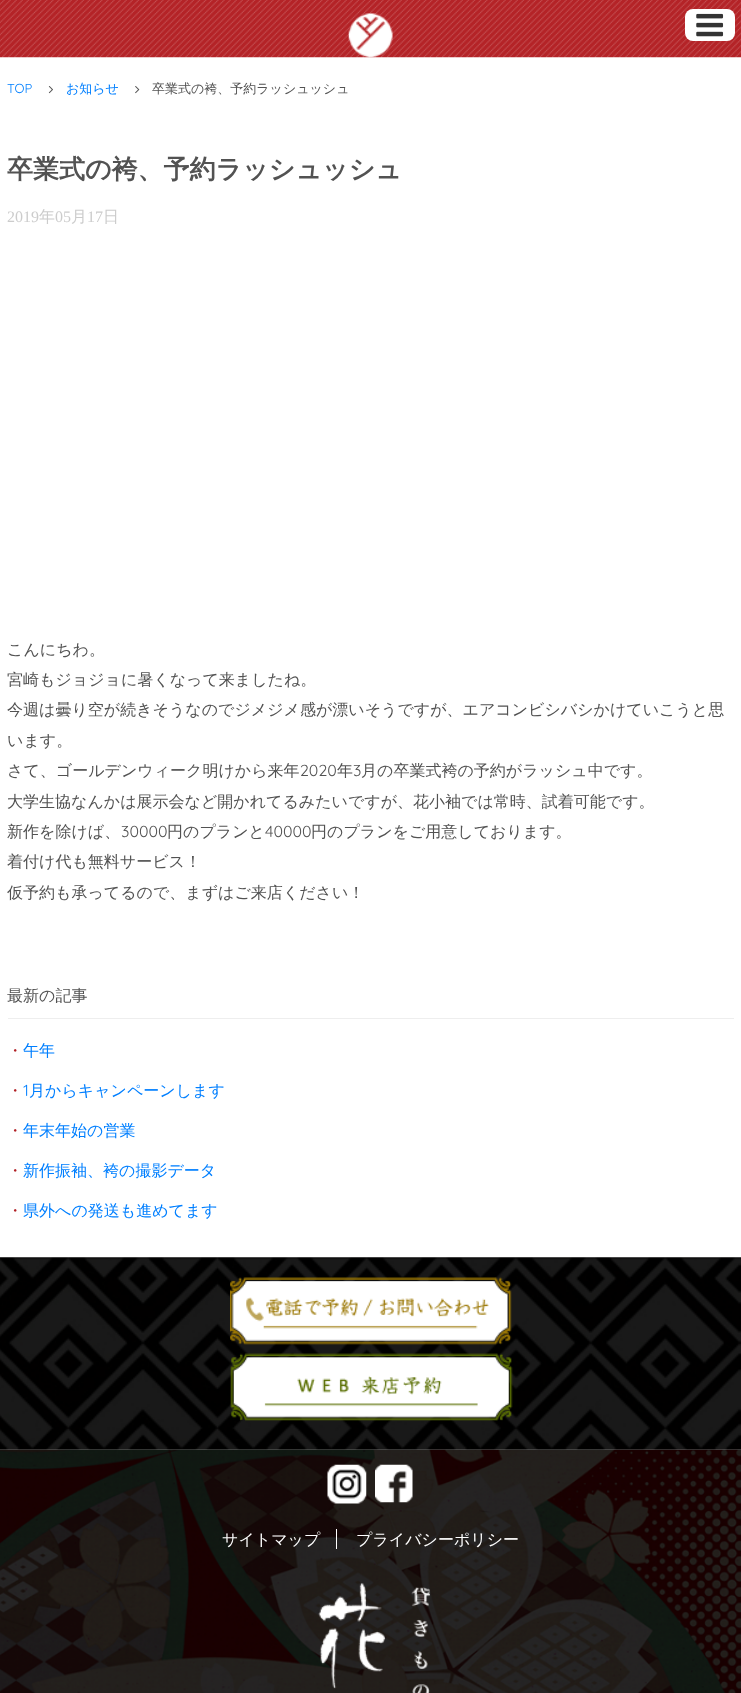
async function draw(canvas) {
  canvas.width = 741
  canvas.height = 1693
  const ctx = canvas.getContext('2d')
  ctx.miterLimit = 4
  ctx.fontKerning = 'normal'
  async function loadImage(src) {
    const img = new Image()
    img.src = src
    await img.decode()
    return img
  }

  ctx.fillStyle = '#fff'
  ctx.fillRect(0, 0, 741, 1693)
  ctx.drawImage(await loadImage('image0.png'), 0, 0, 741, 58)
  ctx.drawImage(await loadImage('image1.png'), 348, 13, 45, 45)
  ctx.beginPath()
  ctx.roundRect(685, 9, 50, 32, 8)
  ctx.fill()
  ctx.drawImage(await loadImage('image2.png'), 696, 13, 28, 24)
  ctx.font = '13px Quicksand'
  ctx.fillStyle = '#007fff'
  ctx.fillText('TOP', 7, 93)
  ctx.drawImage(await loadImage('image3.png'), 48, 86, 5, 8)
  ctx.font = '500 13px WenQuanYi Zen Hei'
  ctx.fillText('お知らせ', 66, 93)
  ctx.drawImage(await loadImage('image4.png'), 135, 86, 5, 8)
  ctx.fillStyle = '#525252'
  ctx.fillText('卒業式の袴、予約ラッシュッシュ', 152, 93)
  ctx.font = 'bold 26px WenQuanYi Zen Hei'
  ctx.fillText('卒業式の袴、予約ラッシュッシュ', 7, 178)
  ctx.font = '16px Liberation Serif'
  ctx.fillStyle = '#ccc'
  ctx.fillText('2019', 7, 222)
  ctx.font = '500 16px WenQuanYi Zen Hei'
  ctx.fillText('年', 39, 222)
  ctx.font = '16px Liberation Serif'
  ctx.fillText('05', 55, 222)
  ctx.font = '500 16px WenQuanYi Zen Hei'
  ctx.fillText('月', 71, 222)
  ctx.font = '16px Liberation Serif'
  ctx.fillText('17', 87, 222)
  ctx.font = '500 16px WenQuanYi Zen Hei'
  ctx.fillText('日', 103, 222)
  ctx.fillStyle = '#525252'
  ctx.fillText('こんにちわ。', 7, 655)
  ctx.fillText('宮崎もジョジョに暑くなって来ましたね。', 7, 685)
  ctx.fillText('今週は曇り空が続きそうなのでジメジメ感が漂いそうですが、エアコンビシバシかけていこうと思', 7, 715)
  ctx.fillText('います。', 7, 746)
  ctx.fillText('さて、ゴールデンウィーク明けから来年', 7, 776)
  ctx.font = '16px Quicksand'
  ctx.fillText('2020', 300, 776)
  ctx.font = '500 16px WenQuanYi Zen Hei'
  ctx.fillText('年', 337, 776)
  ctx.font = '16px Quicksand'
  ctx.fillText('3', 353, 776)
  ctx.font = '500 16px WenQuanYi Zen Hei'
  ctx.fillText('月の卒業式袴の予約がラッシュ中です。', 361, 776)
  ctx.fillText('大学生協なんかは展示会など開かれてるみたいですが、花小袖では常時、試着可能です。', 7, 807)
  ctx.fillText('新作を除けば、', 7, 837)
  ctx.font = '16px Quicksand'
  ctx.fillText('30000', 121, 837)
  ctx.font = '500 16px WenQuanYi Zen Hei'
  ctx.fillText('円のプランと', 167, 837)
  ctx.font = '16px Quicksand'
  ctx.fillText('40000', 265, 837)
  ctx.font = '500 16px WenQuanYi Zen Hei'
  ctx.fillText('円のプランをご用意しております。', 311, 837)
  ctx.fillText('着付け代も無料サービス！', 7, 867)
  ctx.fillText('仮予約も承ってるので、まずはご来店ください！', 7, 898)
  ctx.fillStyle = '#eee'
  ctx.fillRect(8, 1018, 726, 1)
  ctx.fillStyle = '#525252'
  ctx.fillText('最新の記事', 7, 1001)
  ctx.fillStyle = '#b22126'
  ctx.fillText('・', 7, 1056)
  ctx.fillStyle = '#007fff'
  ctx.fillText('午年', 23, 1056)
  ctx.fillStyle = '#b22126'
  ctx.fillText('・', 7, 1096)
  ctx.font = '16px Quicksand'
  ctx.fillStyle = '#007fff'
  ctx.fillText('1', 23, 1096)
  ctx.font = '500 16px WenQuanYi Zen Hei'
  ctx.fillText('月からキャンペーンします', 29, 1096)
  ctx.fillStyle = '#b22126'
  ctx.fillText('・', 7, 1136)
  ctx.fillStyle = '#007fff'
  ctx.fillText('年末年始の営業', 23, 1136)
  ctx.fillStyle = '#b22126'
  ctx.fillText('・', 7, 1176)
  ctx.fillStyle = '#007fff'
  ctx.fillText('新作振袖、袴の撮影データ', 23, 1176)
  ctx.fillStyle = '#b22126'
  ctx.fillText('・', 7, 1216)
  ctx.fillStyle = '#007fff'
  ctx.fillText('県外への発送も進めてます', 23, 1216)
  ctx.drawImage(await loadImage('image5.png'), 0, 1257, 741, 193)
  ctx.drawImage(await loadImage('image6.png'), 230, 1277, 282, 68)
  ctx.drawImage(await loadImage('image7.png'), 230, 1353, 283, 68)
  ctx.drawImage(await loadImage('image8.png'), 0, 1449, 741, 244)
  ctx.drawImage(await loadImage('image9.png'), 327, 1464, 40, 40)
  ctx.drawImage(await loadImage('image10.png'), 375, 1464, 38, 39)
  ctx.fillStyle = '#fff'
  ctx.fillText('サイトマップ', 222, 1545)
  ctx.fillRect(336, 1529, 1, 20)
  ctx.fillText('プライバシーポリシー', 356, 1545)
  ctx.drawImage(await loadImage('image11.png'), 318, 1583, 112, 110)
}

draw(document.querySelector('canvas'))
